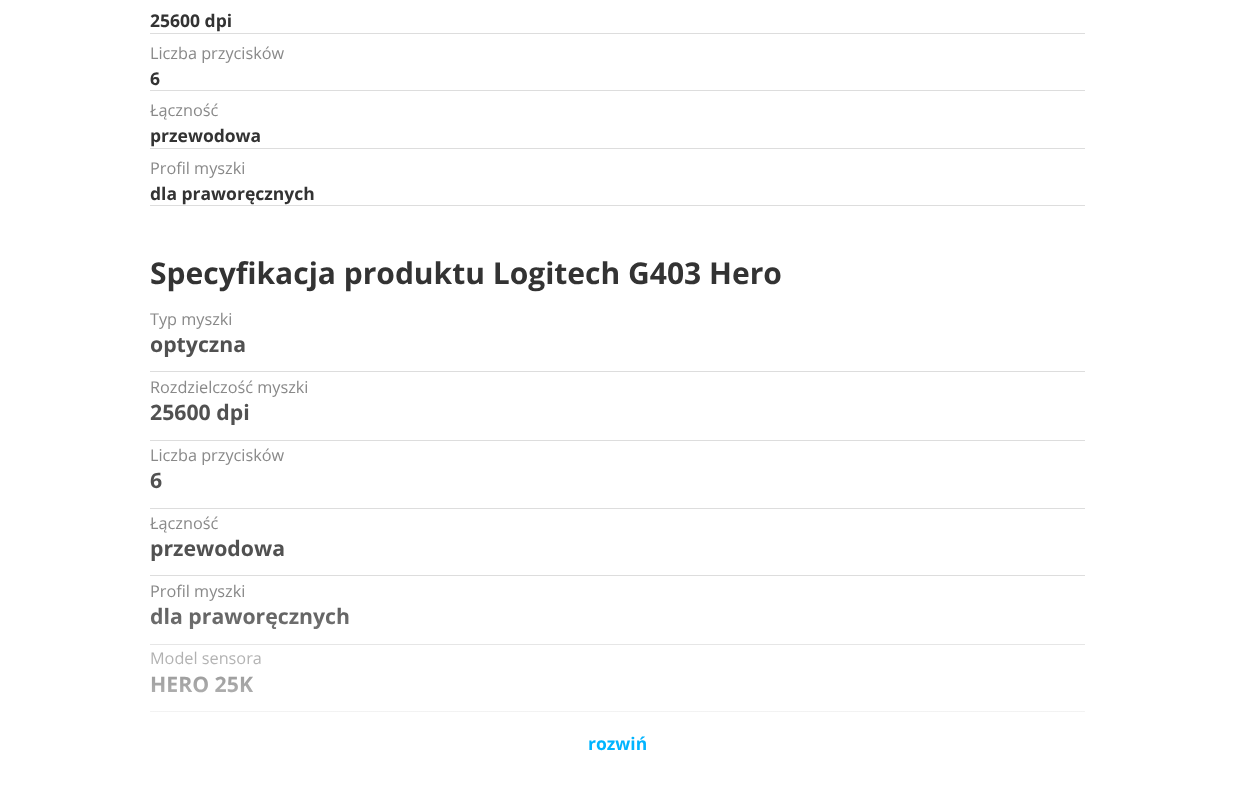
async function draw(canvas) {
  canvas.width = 1234
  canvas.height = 808
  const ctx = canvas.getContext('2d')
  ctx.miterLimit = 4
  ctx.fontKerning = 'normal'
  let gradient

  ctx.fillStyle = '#fff'
  ctx.fillRect(0, 0, 1234, 808)
  ctx.fillStyle = '#ddd'
  ctx.fillRect(150, 33, 935, 1)
  ctx.font = 'bold 17.5px Open Sans'
  ctx.fillStyle = '#333'
  ctx.fillText('25600 dpi', 150, 27)
  ctx.fillStyle = '#ddd'
  ctx.fillRect(150, 90, 935, 1)
  ctx.font = '16.25px Open Sans'
  ctx.fillStyle = '#898989'
  ctx.fillText('Liczba przycisków', 150, 59)
  ctx.font = 'bold 17.5px Open Sans'
  ctx.fillStyle = '#333'
  ctx.fillText('6', 150, 85)
  ctx.fillStyle = '#ddd'
  ctx.fillRect(150, 148, 935, 1)
  ctx.font = '16.25px Open Sans'
  ctx.fillStyle = '#898989'
  ctx.fillText('Łączność', 150, 116)
  ctx.font = 'bold 17.5px Open Sans'
  ctx.fillStyle = '#333'
  ctx.fillText('przewodowa', 150, 142)
  ctx.fillStyle = '#ddd'
  ctx.fillRect(150, 205, 935, 1)
  ctx.font = '16.25px Open Sans'
  ctx.fillStyle = '#898989'
  ctx.fillText('Profil myszki', 150, 174)
  ctx.font = 'bold 17.5px Open Sans'
  ctx.fillStyle = '#333'
  ctx.fillText('dla praworęcznych', 150, 200)
  ctx.font = 'bold 30px Open Sans'
  ctx.fillText('Specyfikacja produktu Logitech G403 Hero', 150, 284)
  ctx.font = '16.25px Open Sans'
  ctx.fillStyle = '#898989'
  ctx.fillText('Typ myszki', 150, 325)
  ctx.fillStyle = '#ddd'
  ctx.fillRect(150, 371, 935, 1)
  ctx.font = 'bold 21.25px Open Sans'
  ctx.fillStyle = '#515151'
  ctx.fillText('optyczna', 150, 352)
  ctx.font = '16.25px Open Sans'
  ctx.fillStyle = '#898989'
  ctx.fillText('Rozdzielczość myszki', 150, 393)
  ctx.fillStyle = '#ddd'
  ctx.fillRect(150, 440, 935, 1)
  ctx.font = 'bold 21.25px Open Sans'
  ctx.fillStyle = '#515151'
  ctx.fillText('25600 dpi', 150, 420)
  ctx.font = '16.25px Open Sans'
  ctx.fillStyle = '#898989'
  ctx.fillText('Liczba przycisków', 150, 461)
  ctx.fillStyle = '#ddd'
  ctx.fillRect(150, 508, 935, 1)
  ctx.font = 'bold 21.25px Open Sans'
  ctx.fillStyle = '#515151'
  ctx.fillText('6', 150, 488)
  ctx.font = '16.25px Open Sans'
  ctx.fillStyle = '#898989'
  ctx.fillText('Łączność', 150, 529)
  ctx.fillStyle = '#ddd'
  ctx.fillRect(150, 575, 935, 1)
  ctx.font = 'bold 21.25px Open Sans'
  ctx.fillStyle = '#515151'
  ctx.fillText('przewodowa', 150, 556)
  ctx.font = '16.25px Open Sans'
  ctx.fillStyle = '#898989'
  ctx.fillText('Profil myszki', 150, 597)
  ctx.fillStyle = '#ddd'
  ctx.fillRect(150, 644, 935, 1)
  ctx.font = 'bold 21.25px Open Sans'
  ctx.fillStyle = '#515151'
  ctx.fillText('dla praworęcznych', 150, 624)
  ctx.font = '16.25px Open Sans'
  ctx.fillStyle = '#898989'
  ctx.fillText('Model sensora', 150, 664)
  ctx.fillStyle = '#ddd'
  ctx.fillRect(150, 711, 935, 1)
  ctx.font = 'bold 21.25px Open Sans'
  ctx.fillStyle = '#515151'
  ctx.fillText('HERO 25K', 150, 692)
  gradient = ctx.createLinearGradient(618, 780, 618, 593)
  gradient.addColorStop(0, '#fff')
  gradient.addColorStop(1, '#ffffff00')
  ctx.fillStyle = gradient
  ctx.fillRect(150, 598, 935, 114)
  ctx.font = 'bold 17.5px Open Sans'
  ctx.fillStyle = '#00b4ff'
  ctx.fillText('rozwiń', 588, 750)
}

draw(document.querySelector('canvas'))
